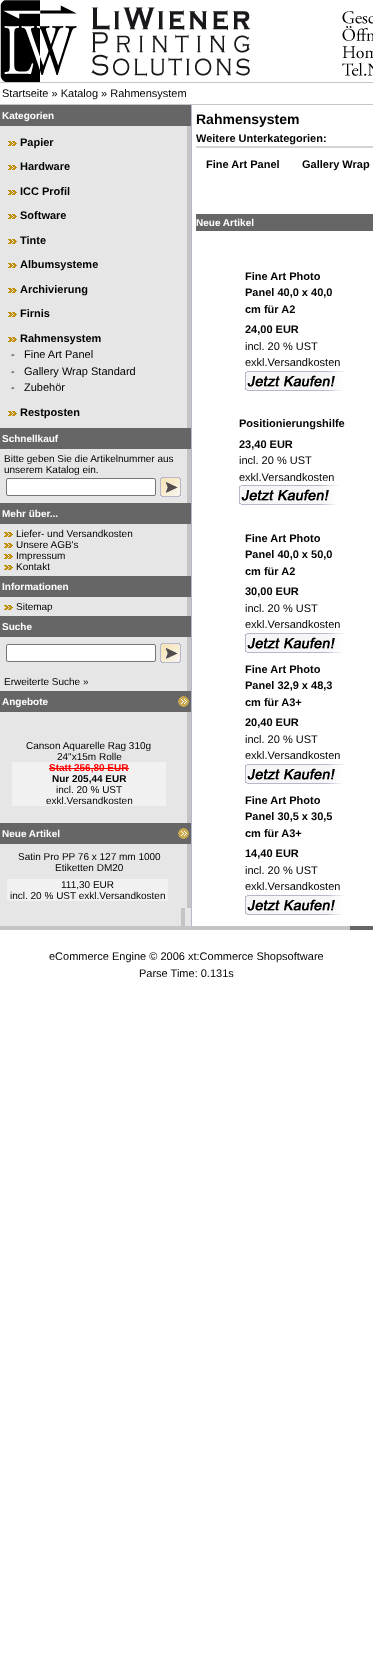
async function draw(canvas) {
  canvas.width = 373
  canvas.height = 1667
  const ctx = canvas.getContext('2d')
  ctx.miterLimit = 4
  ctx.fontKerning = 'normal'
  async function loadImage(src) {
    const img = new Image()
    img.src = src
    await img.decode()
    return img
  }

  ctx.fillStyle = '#fff'
  ctx.fillRect(0, 0, 373, 1667)
  ctx.drawImage(await loadImage('image0.png'), 0, 0, 373, 82)
  ctx.fillStyle = '#c5c5c5'
  ctx.fillRect(0, 82, 373, 1)
  ctx.fillRect(0, 104, 373, 1)
  ctx.font = '11px Liberation Sans'
  ctx.fillStyle = '#000'
  ctx.fillText('Startseite » Katalog » Rahmensystem', 2, 97)
  ctx.drawImage(await loadImage('image1.png'), 0, 908, 191, 18)
  ctx.fillStyle = '#b6b7cb'
  ctx.fillRect(191, 105, 1, 821)
  ctx.fillStyle = '#666'
  ctx.fillRect(0, 105, 191, 21)
  ctx.font = 'bold 10px Liberation Sans'
  ctx.fillStyle = '#fff'
  ctx.fillText('Kategorien', 2, 119)
  ctx.fillStyle = '#e6e6e6'
  ctx.fillRect(0, 126, 187, 302)
  ctx.fillStyle = '#c4c4c4'
  ctx.fillRect(187, 126, 4, 302)
  ctx.drawImage(await loadImage('image2.png'), 8, 141, 9, 5)
  ctx.font = 'bold 11px Liberation Sans'
  ctx.fillStyle = '#000'
  ctx.fillText('Papier', 20, 146)
  ctx.drawImage(await loadImage('image2.png'), 8, 165, 9, 5)
  ctx.fillText('Hardware', 20, 170)
  ctx.drawImage(await loadImage('image2.png'), 8, 190, 9, 5)
  ctx.fillText('ICC Profil', 20, 195)
  ctx.drawImage(await loadImage('image2.png'), 8, 214, 9, 5)
  ctx.fillText('Software', 20, 219)
  ctx.drawImage(await loadImage('image2.png'), 8, 239, 9, 5)
  ctx.fillText('Tinte', 20, 244)
  ctx.drawImage(await loadImage('image2.png'), 8, 263, 9, 5)
  ctx.fillText('Albumsysteme', 20, 268)
  ctx.drawImage(await loadImage('image2.png'), 8, 288, 9, 5)
  ctx.fillText('Archivierung', 20, 293)
  ctx.drawImage(await loadImage('image2.png'), 8, 312, 9, 5)
  ctx.fillText('Firnis', 20, 317)
  ctx.drawImage(await loadImage('image2.png'), 8, 337, 9, 5)
  ctx.fillText('Rahmensystem', 20, 342)
  ctx.font = '11px Liberation Sans'
  ctx.fillText('-', 11, 358)
  ctx.fillText('Fine Art Panel', 24, 358)
  ctx.fillText('-', 11, 375)
  ctx.fillText('Gallery Wrap Standard', 24, 375)
  ctx.fillText('-', 11, 391)
  ctx.fillText('Zubehör', 24, 391)
  ctx.drawImage(await loadImage('image2.png'), 8, 411, 9, 5)
  ctx.font = 'bold 11px Liberation Sans'
  ctx.fillText('Restposten', 20, 416)
  ctx.fillStyle = '#666'
  ctx.fillRect(0, 428, 191, 21)
  ctx.font = 'bold 10px Liberation Sans'
  ctx.fillStyle = '#fff'
  ctx.fillText('Schnellkauf', 2, 442)
  ctx.fillStyle = '#e6e6e6'
  ctx.fillRect(0, 449, 187, 54)
  ctx.fillStyle = '#c4c4c4'
  ctx.fillRect(187, 449, 4, 54)
  ctx.font = '10px Liberation Sans'
  ctx.fillStyle = '#000'
  ctx.fillText('Bitte geben Sie die Artikelnummer aus', 4, 462)
  ctx.fillText('unserem Katalog ein.', 4, 473)
  ctx.fillStyle = '#fff'
  ctx.beginPath()
  ctx.roundRect(6.5, 478.5, 149, 17, 1.5)
  ctx.fill()
  ctx.strokeStyle = '#767676'
  ctx.stroke()
  ctx.drawImage(await loadImage('image3.png'), 160, 477, 21, 20)
  ctx.fillStyle = '#666'
  ctx.fillRect(0, 503, 191, 21)
  ctx.font = 'bold 10px Liberation Sans'
  ctx.fillStyle = '#fff'
  ctx.fillText('Mehr über...', 2, 517)
  ctx.fillStyle = '#e6e6e6'
  ctx.fillRect(0, 524, 187, 52)
  ctx.fillStyle = '#c4c4c4'
  ctx.fillRect(187, 524, 4, 52)
  ctx.drawImage(await loadImage('image2.png'), 4, 532, 9, 5)
  ctx.font = '10px Liberation Sans'
  ctx.fillStyle = '#000'
  ctx.fillText('Liefer- und Versandkosten', 16, 537)
  ctx.drawImage(await loadImage('image2.png'), 4, 543, 9, 5)
  ctx.fillText('Unsere AGB\'s', 16, 548)
  ctx.drawImage(await loadImage('image2.png'), 4, 554, 9, 5)
  ctx.fillText('Impressum', 16, 559)
  ctx.drawImage(await loadImage('image2.png'), 4, 565, 9, 5)
  ctx.fillText('Kontakt', 16, 570)
  ctx.fillStyle = '#666'
  ctx.fillRect(0, 576, 191, 21)
  ctx.font = 'bold 10px Liberation Sans'
  ctx.fillStyle = '#fff'
  ctx.fillText('Informationen', 2, 590)
  ctx.fillStyle = '#e6e6e6'
  ctx.fillRect(0, 597, 187, 19)
  ctx.fillStyle = '#c4c4c4'
  ctx.fillRect(187, 597, 4, 19)
  ctx.drawImage(await loadImage('image2.png'), 4, 605, 9, 5)
  ctx.font = '10px Liberation Sans'
  ctx.fillStyle = '#000'
  ctx.fillText('Sitemap', 16, 610)
  ctx.fillStyle = '#666'
  ctx.fillRect(0, 616, 191, 21)
  ctx.font = 'bold 10px Liberation Sans'
  ctx.fillStyle = '#fff'
  ctx.fillText('Suche', 2, 630)
  ctx.fillStyle = '#e6e6e6'
  ctx.fillRect(0, 637, 187, 54)
  ctx.fillStyle = '#c4c4c4'
  ctx.fillRect(187, 637, 4, 54)
  ctx.fillStyle = '#fff'
  ctx.beginPath()
  ctx.roundRect(6.5, 644.5, 149, 17, 1.5)
  ctx.fill()
  ctx.stroke()
  ctx.drawImage(await loadImage('image3.png'), 160, 643, 21, 20)
  ctx.font = '10px Liberation Sans'
  ctx.fillStyle = '#000'
  ctx.fillText('Erweiterte Suche »', 4, 685)
  ctx.fillStyle = '#666'
  ctx.fillRect(0, 691, 191, 21)
  ctx.font = 'bold 10px Liberation Sans'
  ctx.fillStyle = '#fff'
  ctx.fillText('Angebote', 2, 705)
  ctx.drawImage(await loadImage('image4.png'), 178, 696, 11, 11)
  ctx.fillStyle = '#e6e6e6'
  ctx.fillRect(0, 712, 187, 111)
  ctx.fillStyle = '#c4c4c4'
  ctx.fillRect(187, 712, 4, 111)
  ctx.font = '10px Liberation Sans'
  ctx.fillStyle = '#000'
  ctx.fillText('Canson Aquarelle Rag 310g', 26, 749)
  ctx.fillText('24"x15m Rolle', 57, 760)
  ctx.fillStyle = '#f1f1f1'
  ctx.fillRect(12, 762, 154, 44)
  ctx.font = 'bold 10px Liberation Sans'
  ctx.fillStyle = '#f00'
  ctx.fillText('Statt 256,80 EUR', 49, 771)
  ctx.fillRect(49, 768, 80, 1)
  ctx.fillStyle = '#000'
  ctx.fillText('Nur 205,44 EUR', 52, 782)
  ctx.font = '10px Liberation Sans'
  ctx.fillText('incl. 20 % UST', 56, 793)
  ctx.fillText('exkl.Versandkosten', 46, 804)
  ctx.fillStyle = '#666'
  ctx.fillRect(0, 823, 191, 21)
  ctx.font = 'bold 10px Liberation Sans'
  ctx.fillStyle = '#fff'
  ctx.fillText('Neue Artikel', 2, 837)
  ctx.drawImage(await loadImage('image4.png'), 178, 828, 11, 11)
  ctx.fillStyle = '#e6e6e6'
  ctx.fillRect(0, 844, 187, 64)
  ctx.fillStyle = '#c4c4c4'
  ctx.fillRect(187, 844, 4, 64)
  ctx.font = '10px Liberation Sans'
  ctx.fillStyle = '#000'
  ctx.fillText('Satin Pro PP 76 x 127 mm 1000', 18, 860)
  ctx.fillText('Etiketten DM20', 55, 871)
  ctx.fillStyle = '#f1f1f1'
  ctx.fillRect(7, 879, 161, 22)
  ctx.fillStyle = '#000'
  ctx.fillText('111,30 EUR', 61, 888)
  ctx.fillText('incl. 20 % UST exkl.Versandkosten', 10, 899)
  ctx.font = 'bold 14px Liberation Sans'
  ctx.fillText('Rahmensystem', 196, 124)
  ctx.font = 'bold 11px Liberation Sans'
  ctx.fillText('Weitere Unterkategorien:', 196, 142)
  ctx.fillStyle = '#d4d4d4'
  ctx.fillRect(196, 146, 177, 2)
  ctx.fillStyle = '#000'
  ctx.fillText('Fine Art Panel', 206, 168)
  ctx.fillText('Gallery Wrap', 302, 168)
  ctx.fillStyle = '#666'
  ctx.fillRect(196, 214, 177, 17)
  ctx.font = 'bold 10px Liberation Sans'
  ctx.fillStyle = '#fff'
  ctx.fillText('Neue Artikel', 196, 226)
  ctx.font = 'bold 11px Liberation Sans'
  ctx.fillStyle = '#000'
  ctx.fillText('Fine Art Photo', 245, 280)
  ctx.fillText('Panel 40,0 x 40,0', 245, 296)
  ctx.fillText('cm für A2', 245, 313)
  ctx.fillText('24,00 EUR', 245, 333)
  ctx.font = '11px Liberation Sans'
  ctx.fillText('incl. 20 % UST', 245, 350)
  ctx.fillText('exkl.Versandkosten', 245, 366)
  ctx.drawImage(await loadImage('image5.png'), 245, 371, 100, 20)
  ctx.font = 'bold 11px Liberation Sans'
  ctx.fillText('Positionierungshilfe', 239, 427)
  ctx.fillText('23,40 EUR', 239, 448)
  ctx.font = '11px Liberation Sans'
  ctx.fillText('incl. 20 % UST', 239, 464)
  ctx.fillText('exkl.Versandkosten', 239, 481)
  ctx.drawImage(await loadImage('image5.png'), 239, 485, 100, 20)
  ctx.font = 'bold 11px Liberation Sans'
  ctx.fillText('Fine Art Photo', 245, 542)
  ctx.fillText('Panel 40,0 x 50,0', 245, 558)
  ctx.fillText('cm für A2', 245, 575)
  ctx.fillText('30,00 EUR', 245, 595)
  ctx.font = '11px Liberation Sans'
  ctx.fillText('incl. 20 % UST', 245, 612)
  ctx.fillText('exkl.Versandkosten', 245, 628)
  ctx.drawImage(await loadImage('image5.png'), 245, 633, 100, 20)
  ctx.font = 'bold 11px Liberation Sans'
  ctx.fillText('Fine Art Photo', 245, 673)
  ctx.fillText('Panel 32,9 x 48,3', 245, 689)
  ctx.fillText('cm für A3+', 245, 706)
  ctx.fillText('20,40 EUR', 245, 726)
  ctx.font = '11px Liberation Sans'
  ctx.fillText('incl. 20 % UST', 245, 743)
  ctx.fillText('exkl.Versandkosten', 245, 759)
  ctx.drawImage(await loadImage('image5.png'), 245, 764, 100, 20)
  ctx.font = 'bold 11px Liberation Sans'
  ctx.fillText('Fine Art Photo', 245, 804)
  ctx.fillText('Panel 30,5 x 30,5', 245, 820)
  ctx.fillText('cm für A3+', 245, 837)
  ctx.fillText('14,40 EUR', 245, 857)
  ctx.font = '11px Liberation Sans'
  ctx.fillText('incl. 20 % UST', 245, 874)
  ctx.fillText('exkl.Versandkosten', 245, 890)
  ctx.drawImage(await loadImage('image5.png'), 245, 895, 100, 20)
  ctx.fillStyle = '#c5c5c5'
  ctx.fillRect(0, 926, 350, 4)
  ctx.fillStyle = '#666'
  ctx.fillRect(350, 926, 23, 4)
  ctx.fillStyle = '#000'
  ctx.fillText('eCommerce Engine © 2006 xt:Commerce Shopsoftware', 49, 960)
  ctx.fillText('Parse Time: 0.131s', 139, 977)
}

draw(document.querySelector('canvas'))
